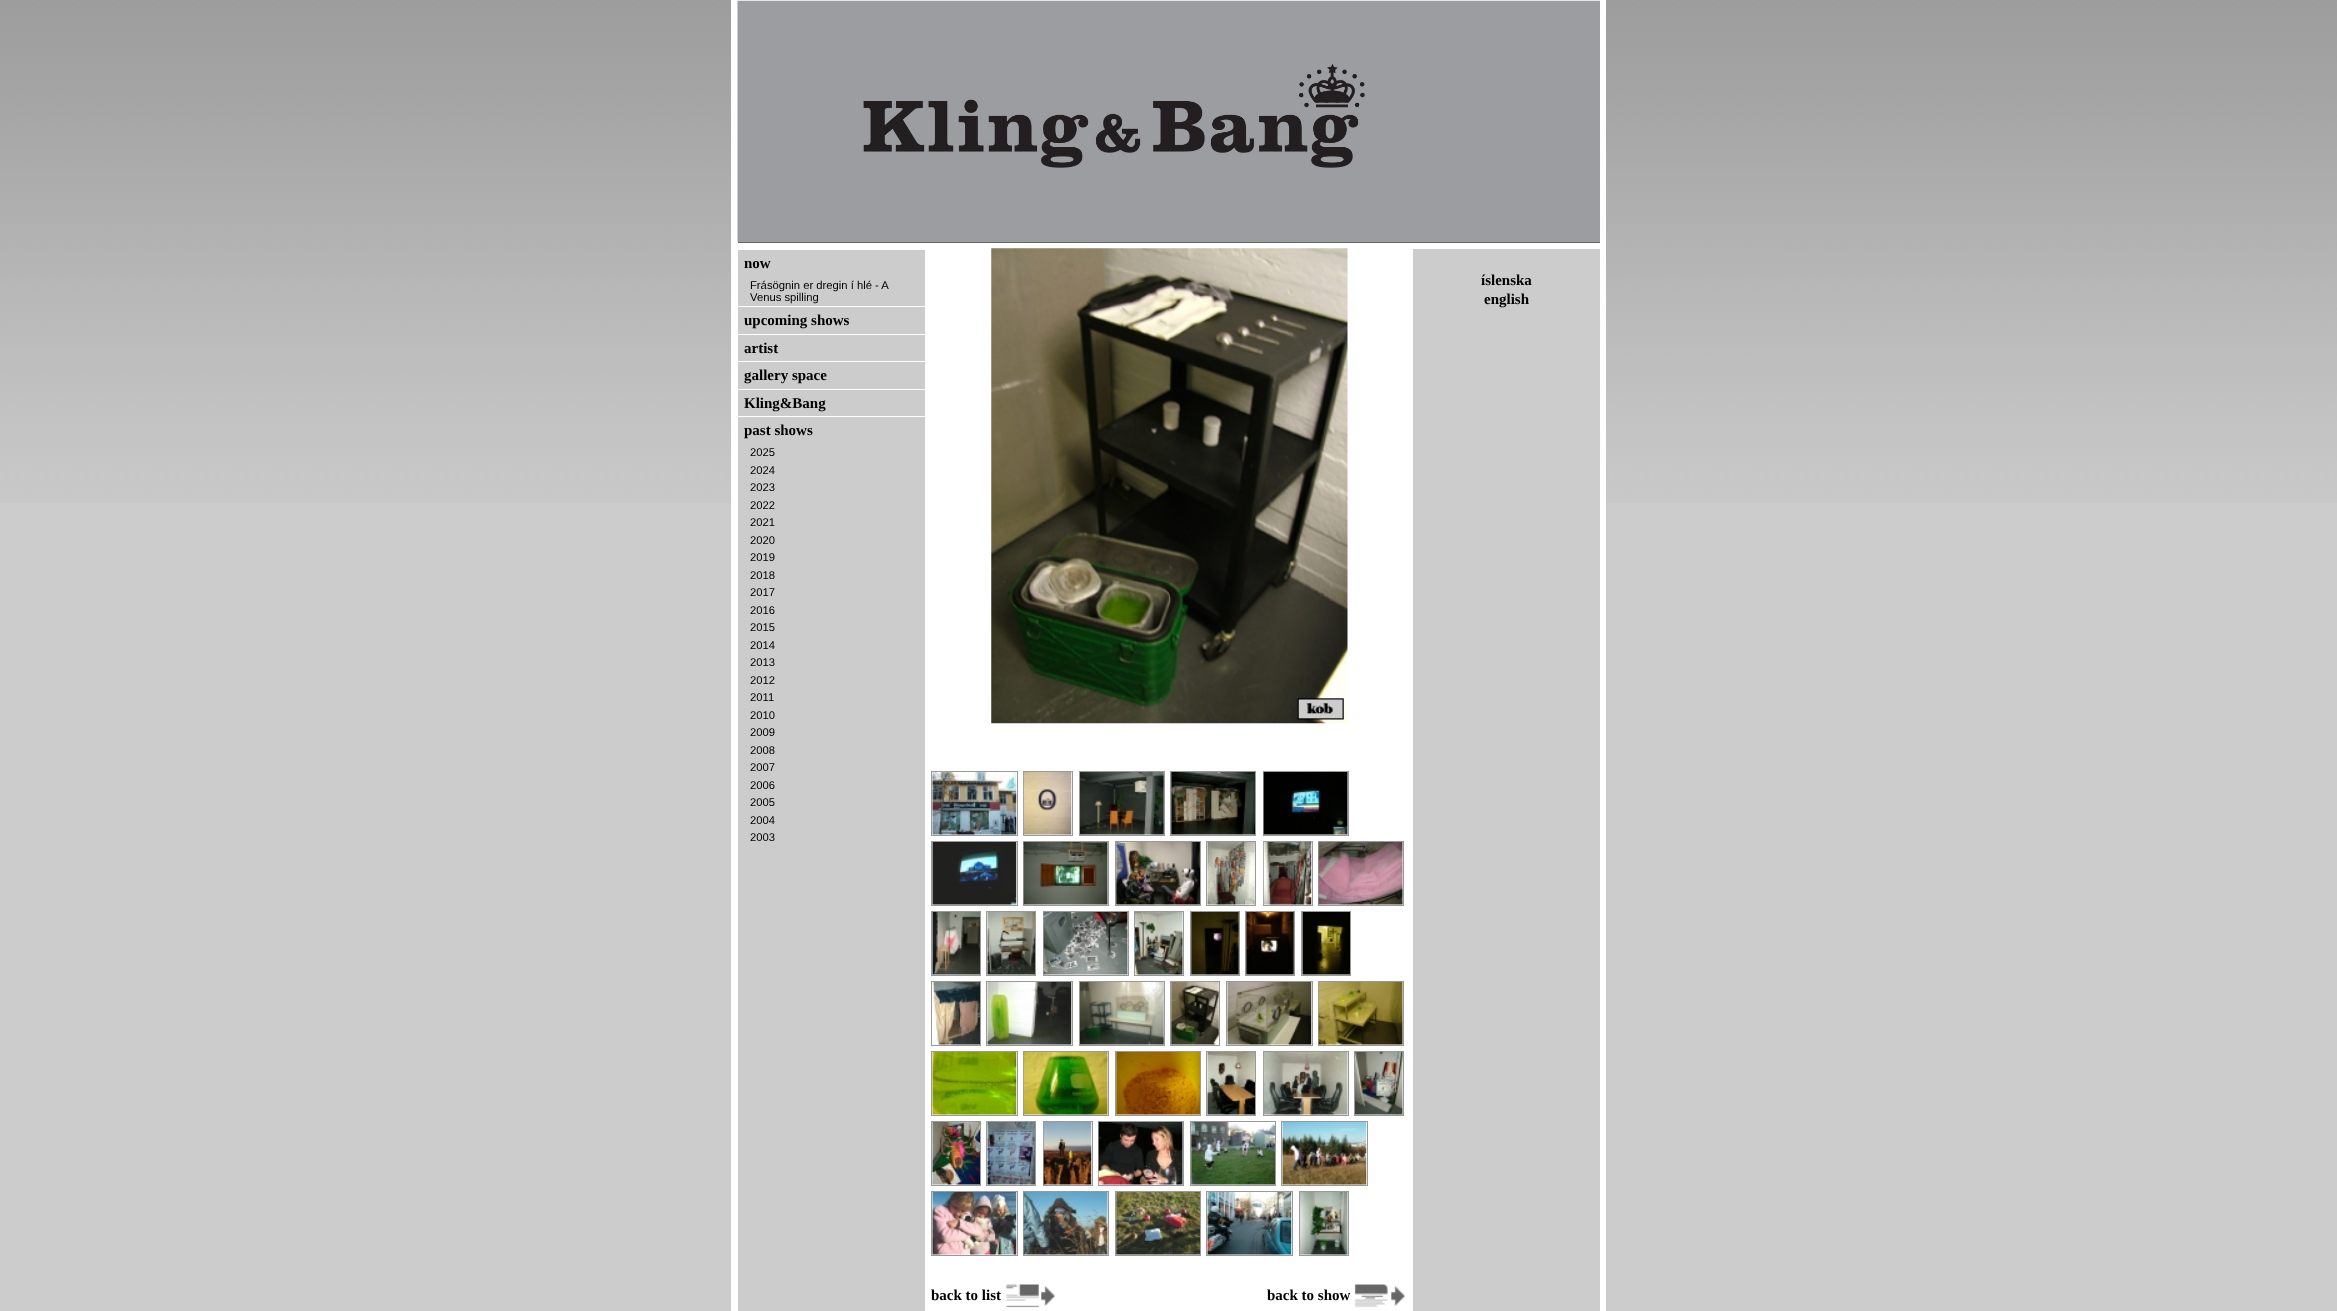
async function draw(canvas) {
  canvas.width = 2337
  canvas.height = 1311
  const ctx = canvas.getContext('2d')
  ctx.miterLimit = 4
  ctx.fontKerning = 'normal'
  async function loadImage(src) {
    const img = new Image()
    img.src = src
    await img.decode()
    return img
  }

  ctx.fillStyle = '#ccc'
  ctx.fillRect(0, 0, 2337, 1311)
  ctx.drawImage(await loadImage('image0.png'), 0, 0, 2337, 503)
  ctx.fillStyle = '#fff'
  ctx.fillRect(731, 0, 875, 1311)
  ctx.fillStyle = '#666'
  ctx.fillRect(738, 242, 862, 1)
  ctx.drawImage(await loadImage('image1.png'), 737, 0, 863, 242)
  ctx.fillStyle = '#ccc'
  ctx.fillRect(738, 250, 187, 1061)
  ctx.font = 'bold 15px Liberation Serif'
  ctx.fillStyle = '#000'
  ctx.fillText('now', 744, 268)
  ctx.font = '11.25px Liberation Sans'
  ctx.fillText('Frásögnin er dregin í hlé - A', 750, 289)
  ctx.fillText('Venus spilling', 750, 301)
  ctx.fillStyle = '#fff'
  ctx.fillRect(738, 306, 187, 1)
  ctx.font = 'bold 15px Liberation Serif'
  ctx.fillStyle = '#000'
  ctx.fillText('upcoming shows', 744, 325)
  ctx.fillStyle = '#fff'
  ctx.fillRect(738, 334, 187, 1)
  ctx.fillStyle = '#000'
  ctx.fillText('artist', 744, 353)
  ctx.fillStyle = '#fff'
  ctx.fillRect(738, 361, 187, 1)
  ctx.fillStyle = '#000'
  ctx.fillText('gallery space', 744, 380)
  ctx.fillStyle = '#fff'
  ctx.fillRect(738, 389, 187, 1)
  ctx.fillStyle = '#000'
  ctx.fillText('Kling&Bang', 744, 408)
  ctx.fillStyle = '#fff'
  ctx.fillRect(738, 416, 187, 1)
  ctx.fillStyle = '#000'
  ctx.fillText('past shows', 744, 435)
  ctx.font = '11.25px Liberation Sans'
  ctx.fillText('2025', 750, 456)
  ctx.fillText('2024', 750, 474)
  ctx.fillText('2023', 750, 491)
  ctx.fillText('2022', 750, 509)
  ctx.fillText('2021', 750, 526)
  ctx.fillText('2020', 750, 544)
  ctx.fillText('2019', 750, 561)
  ctx.fillText('2018', 750, 579)
  ctx.fillText('2017', 750, 596)
  ctx.fillText('2016', 750, 614)
  ctx.fillText('2015', 750, 631)
  ctx.fillText('2014', 750, 649)
  ctx.fillText('2013', 750, 666)
  ctx.fillText('2012', 750, 684)
  ctx.fillText('2011', 750, 701)
  ctx.fillText('2010', 750, 719)
  ctx.fillText('2009', 750, 736)
  ctx.fillText('2008', 750, 754)
  ctx.fillText('2007', 750, 771)
  ctx.fillText('2006', 750, 789)
  ctx.fillText('2005', 750, 806)
  ctx.fillText('2004', 750, 824)
  ctx.fillText('2003', 750, 841)
  ctx.fillStyle = '#ccc'
  ctx.fillRect(1413, 249, 187, 1062)
  ctx.font = 'bold 15px Liberation Serif'
  ctx.fillStyle = '#000'
  ctx.fillText('íslenska', 1481, 285)
  ctx.fillText('english', 1484, 304)
  ctx.drawImage(await loadImage('image2.png'), 991, 248, 357, 476)
  ctx.strokeStyle = '#999'
  ctx.strokeRect(931.5, 771.5, 86, 64)
  ctx.strokeRect(1023.5, 771.5, 49, 64)
  ctx.strokeRect(1079.5, 771.5, 85, 64)
  ctx.strokeRect(1170.5, 771.5, 85, 64)
  ctx.strokeRect(1263.5, 771.5, 85, 64)
  ctx.drawImage(await loadImage('image3.png'), 932, 772, 85, 63)
  ctx.drawImage(await loadImage('image4.png'), 1023, 772, 49, 63)
  ctx.drawImage(await loadImage('image5.png'), 1080, 772, 84, 63)
  ctx.drawImage(await loadImage('image6.png'), 1171, 772, 84, 63)
  ctx.drawImage(await loadImage('image7.png'), 1263, 772, 85, 63)
  ctx.strokeRect(931.5, 841.5, 86, 64)
  ctx.strokeRect(1023.5, 841.5, 85, 64)
  ctx.strokeRect(1115.5, 841.5, 85, 64)
  ctx.strokeRect(1206.5, 841.5, 49, 64)
  ctx.strokeRect(1263.5, 841.5, 49, 64)
  ctx.strokeRect(1318.5, 841.5, 85, 64)
  ctx.drawImage(await loadImage('image8.png'), 932, 842, 85, 63)
  ctx.drawImage(await loadImage('image9.png'), 1023, 842, 85, 63)
  ctx.drawImage(await loadImage('image10.png'), 1116, 842, 84, 63)
  ctx.drawImage(await loadImage('image11.png'), 1207, 842, 48, 63)
  ctx.drawImage(await loadImage('image12.png'), 1263, 842, 49, 63)
  ctx.drawImage(await loadImage('image13.png'), 1318, 842, 85, 63)
  ctx.strokeRect(931.5, 911.5, 49, 64)
  ctx.strokeRect(986.5, 911.5, 49, 64)
  ctx.strokeRect(1043.5, 911.5, 85, 64)
  ctx.strokeRect(1134.5, 911.5, 49, 64)
  ctx.strokeRect(1190.5, 911.5, 49, 64)
  ctx.strokeRect(1245.5, 911.5, 49, 64)
  ctx.strokeRect(1301.5, 911.5, 49, 64)
  ctx.drawImage(await loadImage('image14.png'), 932, 912, 48, 63)
  ctx.drawImage(await loadImage('image15.png'), 987, 912, 48, 63)
  ctx.drawImage(await loadImage('image16.png'), 1043, 912, 85, 63)
  ctx.drawImage(await loadImage('image17.png'), 1135, 912, 48, 63)
  ctx.drawImage(await loadImage('image18.png'), 1191, 912, 48, 63)
  ctx.drawImage(await loadImage('image19.png'), 1246, 912, 48, 63)
  ctx.drawImage(await loadImage('image20.png'), 1302, 912, 48, 63)
  ctx.strokeRect(931.5, 981.5, 49, 64)
  ctx.strokeRect(986.5, 981.5, 86, 64)
  ctx.strokeRect(1079.5, 981.5, 85, 64)
  ctx.strokeRect(1170.5, 981.5, 49, 64)
  ctx.strokeRect(1226.5, 981.5, 86, 64)
  ctx.strokeRect(1318.5, 981.5, 85, 64)
  ctx.drawImage(await loadImage('image21.png'), 932, 982, 48, 63)
  ctx.drawImage(await loadImage('image22.png'), 987, 982, 85, 63)
  ctx.drawImage(await loadImage('image23.png'), 1080, 982, 84, 63)
  ctx.drawImage(await loadImage('image24.png'), 1171, 982, 48, 63)
  ctx.drawImage(await loadImage('image25.png'), 1227, 982, 85, 63)
  ctx.drawImage(await loadImage('image26.png'), 1318, 982, 85, 63)
  ctx.strokeRect(931.5, 1051.5, 86, 64)
  ctx.strokeRect(1023.5, 1051.5, 85, 64)
  ctx.strokeRect(1115.5, 1051.5, 85, 64)
  ctx.strokeRect(1206.5, 1051.5, 49, 64)
  ctx.strokeRect(1263.5, 1051.5, 85, 64)
  ctx.strokeRect(1354.5, 1051.5, 49, 64)
  ctx.drawImage(await loadImage('image27.png'), 932, 1052, 85, 63)
  ctx.drawImage(await loadImage('image28.png'), 1023, 1052, 85, 63)
  ctx.drawImage(await loadImage('image29.png'), 1116, 1052, 84, 63)
  ctx.drawImage(await loadImage('image30.png'), 1207, 1052, 48, 63)
  ctx.drawImage(await loadImage('image31.png'), 1263, 1052, 85, 63)
  ctx.drawImage(await loadImage('image32.png'), 1355, 1052, 48, 63)
  ctx.strokeRect(931.5, 1121.5, 49, 64)
  ctx.strokeRect(986.5, 1121.5, 49, 64)
  ctx.strokeRect(1043.5, 1121.5, 49, 64)
  ctx.strokeRect(1098.5, 1121.5, 85, 64)
  ctx.strokeRect(1190.5, 1121.5, 85, 64)
  ctx.strokeRect(1281.5, 1121.5, 86, 64)
  ctx.drawImage(await loadImage('image33.png'), 932, 1122, 48, 63)
  ctx.drawImage(await loadImage('image34.png'), 987, 1122, 48, 63)
  ctx.drawImage(await loadImage('image35.png'), 1043, 1122, 49, 63)
  ctx.drawImage(await loadImage('image36.png'), 1098, 1122, 85, 63)
  ctx.drawImage(await loadImage('image37.png'), 1191, 1122, 84, 63)
  ctx.drawImage(await loadImage('image38.png'), 1282, 1122, 85, 63)
  ctx.strokeRect(931.5, 1191.5, 86, 64)
  ctx.strokeRect(1023.5, 1191.5, 85, 64)
  ctx.strokeRect(1115.5, 1191.5, 85, 64)
  ctx.strokeRect(1206.5, 1191.5, 86, 64)
  ctx.strokeRect(1299.5, 1191.5, 49, 64)
  ctx.drawImage(await loadImage('image39.png'), 932, 1192, 85, 63)
  ctx.drawImage(await loadImage('image40.png'), 1023, 1192, 85, 63)
  ctx.drawImage(await loadImage('image41.png'), 1116, 1192, 84, 63)
  ctx.drawImage(await loadImage('image42.png'), 1207, 1192, 85, 63)
  ctx.drawImage(await loadImage('image43.png'), 1300, 1192, 48, 63)
  ctx.fillText('back to list', 931, 1300)
  ctx.drawImage(await loadImage('image44.png'), 1006, 1284, 50, 24)
  ctx.fillText('back to show', 1267, 1300)
  ctx.drawImage(await loadImage('image45.png'), 1354, 1284, 52, 24)
}

draw(document.querySelector('canvas'))
